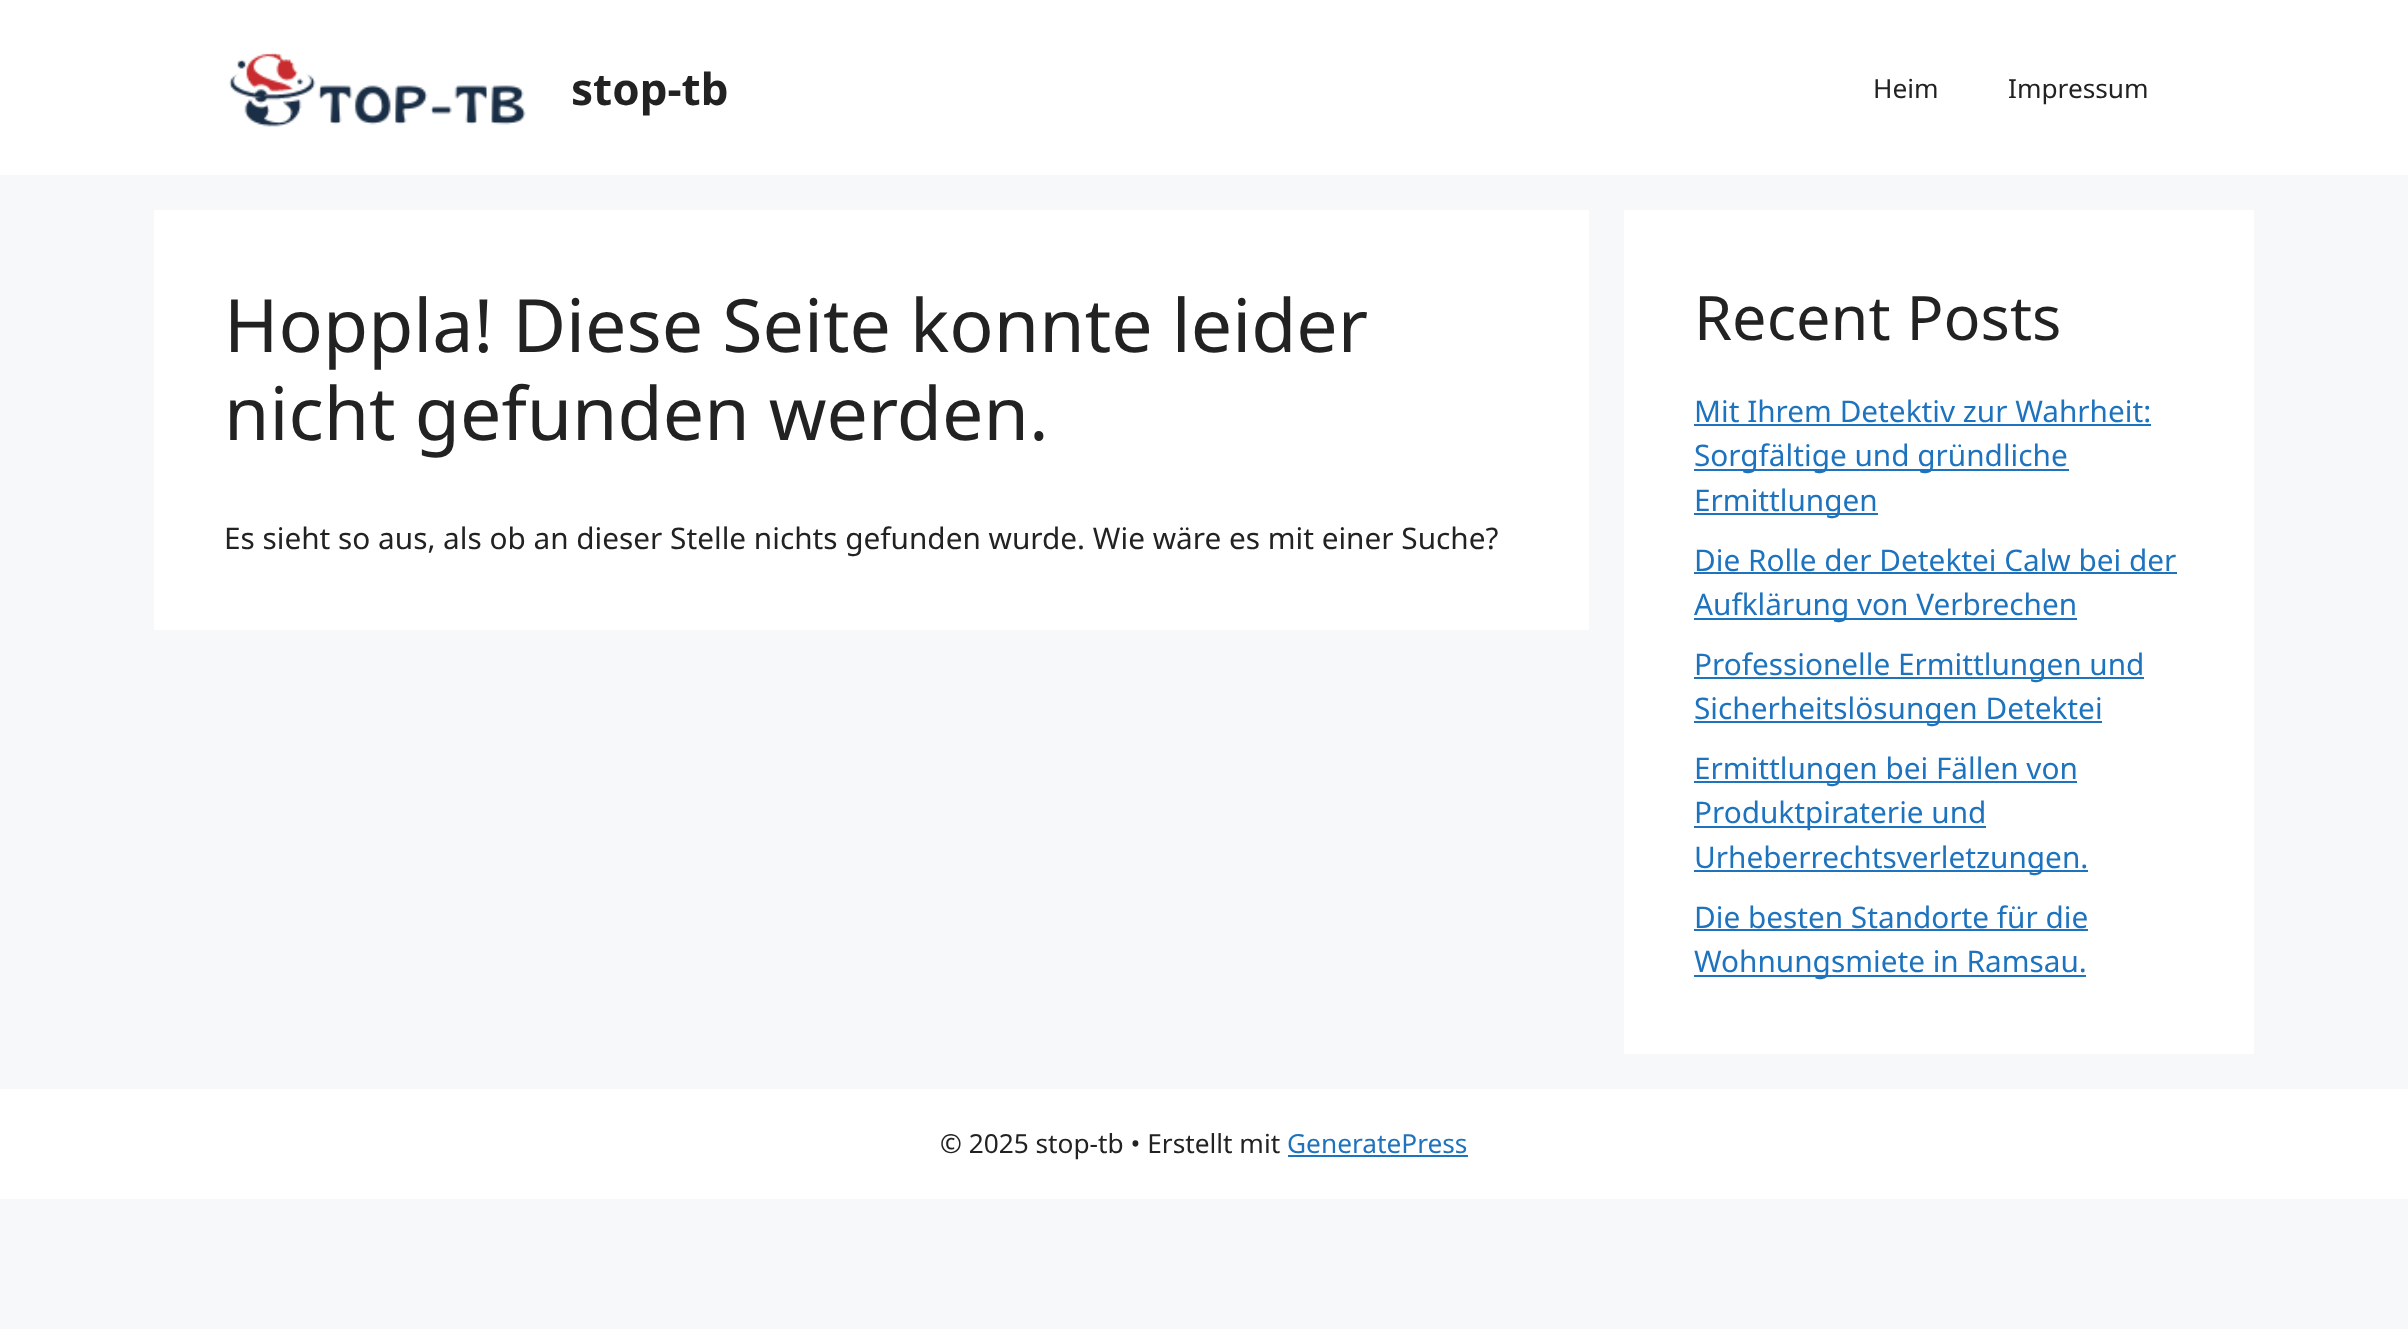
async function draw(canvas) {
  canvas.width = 2408
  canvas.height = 1329
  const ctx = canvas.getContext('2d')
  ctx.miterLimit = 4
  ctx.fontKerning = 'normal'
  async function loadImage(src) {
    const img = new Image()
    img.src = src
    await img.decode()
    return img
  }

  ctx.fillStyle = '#f7f8f9'
  ctx.fillRect(0, 0, 2408, 1329)
  ctx.fillStyle = '#fff'
  ctx.fillRect(0, 0, 2408, 175)
  ctx.drawImage(await loadImage('image0.png'), 229, 52, 297, 75)
  ctx.font = 'bold 44px Noto Sans'
  ctx.fillStyle = '#222'
  ctx.fillText('stop-tb', 571, 105)
  ctx.font = '26.25px Noto Sans'
  ctx.fillText('Heim', 1873, 98)
  ctx.fillText('Impressum', 2008, 98)
  ctx.fillStyle = '#fff'
  ctx.fillRect(154, 210, 1435, 420)
  ctx.font = '73.5px Noto Sans'
  ctx.fillStyle = '#222'
  ctx.fillText('Hoppla! Diese Seite konnte leider', 224, 352)
  ctx.fillText('nicht gefunden werden.', 224, 440)
  ctx.font = '29.75px Noto Sans'
  ctx.fillText('Es sieht so aus, als ob an dieser Stelle nichts gefunden wurde. Wie wäre es mit einer Suche?', 224, 549)
  ctx.fillStyle = '#fff'
  ctx.fillRect(1624, 210, 630, 844)
  ctx.font = '61.25px Noto Sans'
  ctx.fillStyle = '#222'
  ctx.fillText('Recent Posts', 1694, 340)
  ctx.font = '29.75px Noto Sans'
  ctx.fillStyle = '#1e73be'
  ctx.fillText('Mit Ihrem Detektiv zur Wahrheit:', 1694, 422)
  ctx.fillRect(1694, 424, 457, 2)
  ctx.fillRect(1694, 469, 375, 2)
  ctx.fillText('Sorgfältige und gründliche', 1694, 466)
  ctx.fillRect(1694, 513, 184, 2)
  ctx.fillText('Ermittlungen', 1694, 511)
  ctx.fillText('Die Rolle der Detektei Calw bei der', 1694, 571)
  ctx.fillRect(1694, 572, 483, 2)
  ctx.fillRect(1694, 618, 383, 2)
  ctx.fillText('Aufklärung von Verbrechen', 1694, 615)
  ctx.fillRect(1694, 677, 450, 2)
  ctx.fillText('Professionelle Ermittlungen und', 1694, 675)
  ctx.fillRect(1694, 721, 408, 2)
  ctx.fillText('Sicherheitslösungen Detektei', 1694, 719)
  ctx.fillRect(1694, 781, 383, 2)
  ctx.fillText('Ermittlungen bei Fällen von', 1694, 779)
  ctx.fillRect(1694, 826, 292, 2)
  ctx.fillText('Produktpiraterie und', 1694, 823)
  ctx.fillRect(1694, 870, 394, 2)
  ctx.fillText('Urheberrechtsverletzungen.', 1694, 868)
  ctx.fillText('Die besten Standorte für die', 1694, 928)
  ctx.fillRect(1694, 929, 394, 2)
  ctx.fillRect(1694, 975, 392, 2)
  ctx.fillText('Wohnungsmiete in Ramsau.', 1694, 972)
  ctx.fillStyle = '#fff'
  ctx.fillRect(0, 1089, 2408, 110)
  ctx.font = '26.25px Noto Sans'
  ctx.fillStyle = '#222'
  ctx.fillText('© 2025 stop-tb • Erstellt mit', 940, 1153)
  ctx.fillStyle = '#1e73be'
  ctx.fillText('GeneratePress', 1287, 1153)
  ctx.fillRect(1288, 1155, 180, 2)
}

draw(document.querySelector('canvas'))
